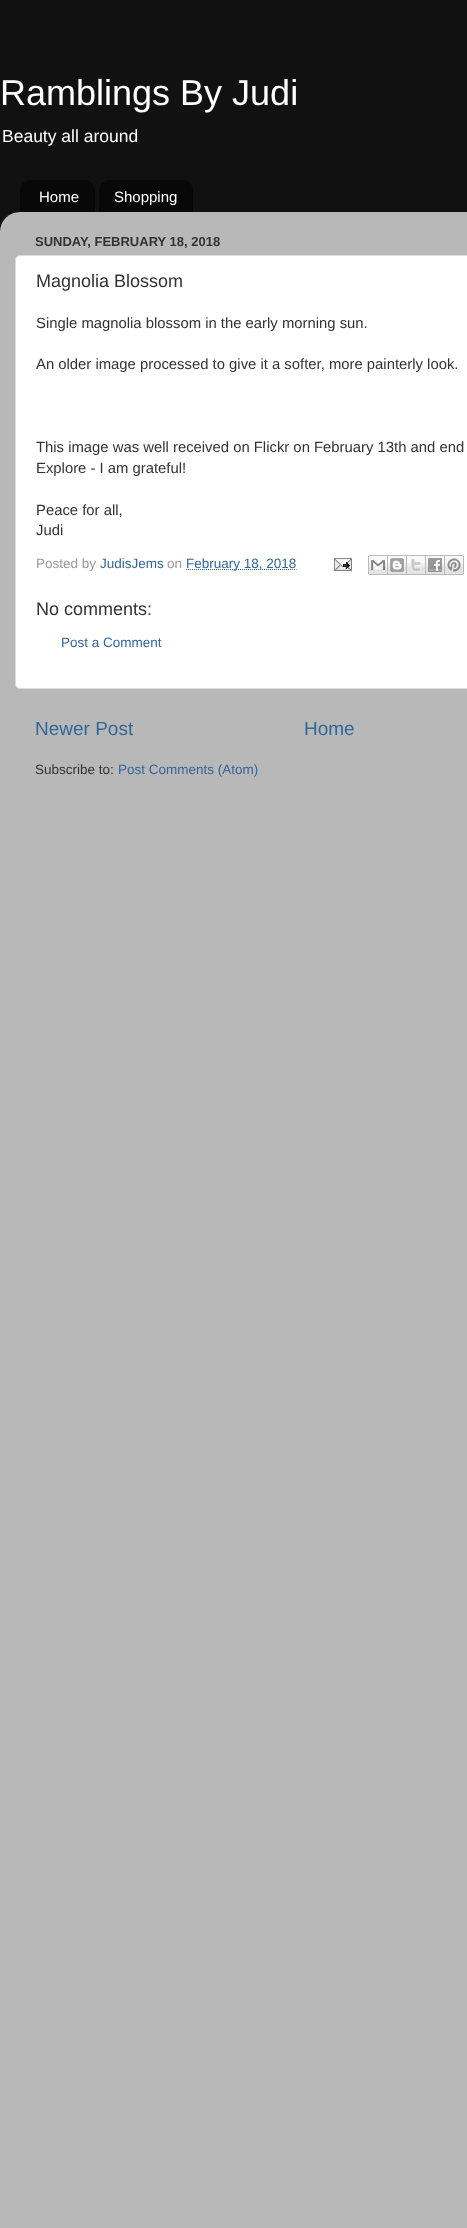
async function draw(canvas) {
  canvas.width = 467
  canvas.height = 2228
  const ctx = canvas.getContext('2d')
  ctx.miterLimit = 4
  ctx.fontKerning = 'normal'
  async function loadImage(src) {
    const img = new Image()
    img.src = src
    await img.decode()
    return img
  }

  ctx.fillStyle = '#111'
  ctx.fillRect(0, 0, 467, 2228)
  ctx.font = '36px Liberation Sans'
  ctx.fillStyle = '#fff'
  ctx.fillText('Ramblings By Judi', 0, 105)
  ctx.font = '17.5px Liberation Sans'
  ctx.fillText('Beauty all around', 2, 142)
  ctx.drawImage(await loadImage('image0.png'), 20, 180, 75, 32)
  ctx.font = '15px Liberation Sans'
  ctx.fillText('Home', 39, 202)
  ctx.drawImage(await loadImage('image1.png'), 99, 180, 94, 32)
  ctx.fillText('Shopping', 114, 202)
  ctx.drawImage(await loadImage('image2.png'), 0, 212, 467, 2016)
  ctx.font = 'bold 13px Liberation Sans'
  ctx.fillStyle = '#333'
  ctx.fillText('SUNDAY, FEBRUARY 18, 2018', 35, 246)
  ctx.fillStyle = '#fff'
  ctx.beginPath()
  ctx.roundRect(15.5, 255.5, 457, 433, 4.5)
  ctx.fill()
  ctx.strokeStyle = '#ddd'
  ctx.stroke()
  ctx.font = '18px Liberation Sans'
  ctx.fillStyle = '#333'
  ctx.fillText('Magnolia Blossom', 36, 287)
  ctx.font = '14.85px Liberation Sans'
  ctx.fillText('Single magnolia blossom in the early morning sun.', 36, 328)
  ctx.fillText('An older image processed to give it a softer, more painterly look.', 36, 369)
  ctx.fillText('This image was well received on Flickr on February 13th and end', 36, 452)
  ctx.fillText('Explore - I am grateful!', 36, 473)
  ctx.fillText('Peace for all,', 36, 515)
  ctx.fillText('Judi', 36, 535)
  ctx.font = '13.5px Liberation Sans'
  ctx.fillStyle = '#999'
  ctx.fillText('Posted by', 36, 568)
  ctx.fillStyle = '#369'
  ctx.fillText('JudisJems', 100, 568)
  ctx.fillStyle = '#999'
  ctx.fillText('on', 167, 568)
  ctx.beginPath()
  ctx.moveTo(186, 569.5)
  ctx.lineTo(296.5, 569.5)
  ctx.strokeStyle = '#369'
  ctx.setLineDash([1, 1])
  ctx.stroke()
  ctx.fillStyle = '#369'
  ctx.fillText('February 18, 2018', 186, 568)
  ctx.drawImage(await loadImage('image3.png'), 334, 558, 18, 13)
  ctx.drawImage(await loadImage('image4.png'), 368, 555, 20, 20)
  ctx.drawImage(await loadImage('image5.png'), 388, 555, 19, 20)
  ctx.drawImage(await loadImage('image6.png'), 407, 555, 19, 20)
  ctx.drawImage(await loadImage('image7.png'), 426, 555, 19, 20)
  ctx.drawImage(await loadImage('image8.png'), 445, 555, 19, 20)
  ctx.font = '18px Liberation Sans'
  ctx.fillStyle = '#333'
  ctx.fillText('No comments:', 36, 615)
  ctx.font = '13.5px Liberation Sans'
  ctx.fillStyle = '#369'
  ctx.fillText('Post a Comment', 61, 647)
  ctx.font = '19px Liberation Sans'
  ctx.fillText('Newer Post', 35, 735)
  ctx.fillText('Home', 304, 735)
  ctx.font = '13.5px Liberation Sans'
  ctx.fillStyle = '#333'
  ctx.fillText('Subscribe to:', 35, 774)
  ctx.fillStyle = '#369'
  ctx.fillText('Post Comments (Atom)', 118, 774)
}

draw(document.querySelector('canvas'))
